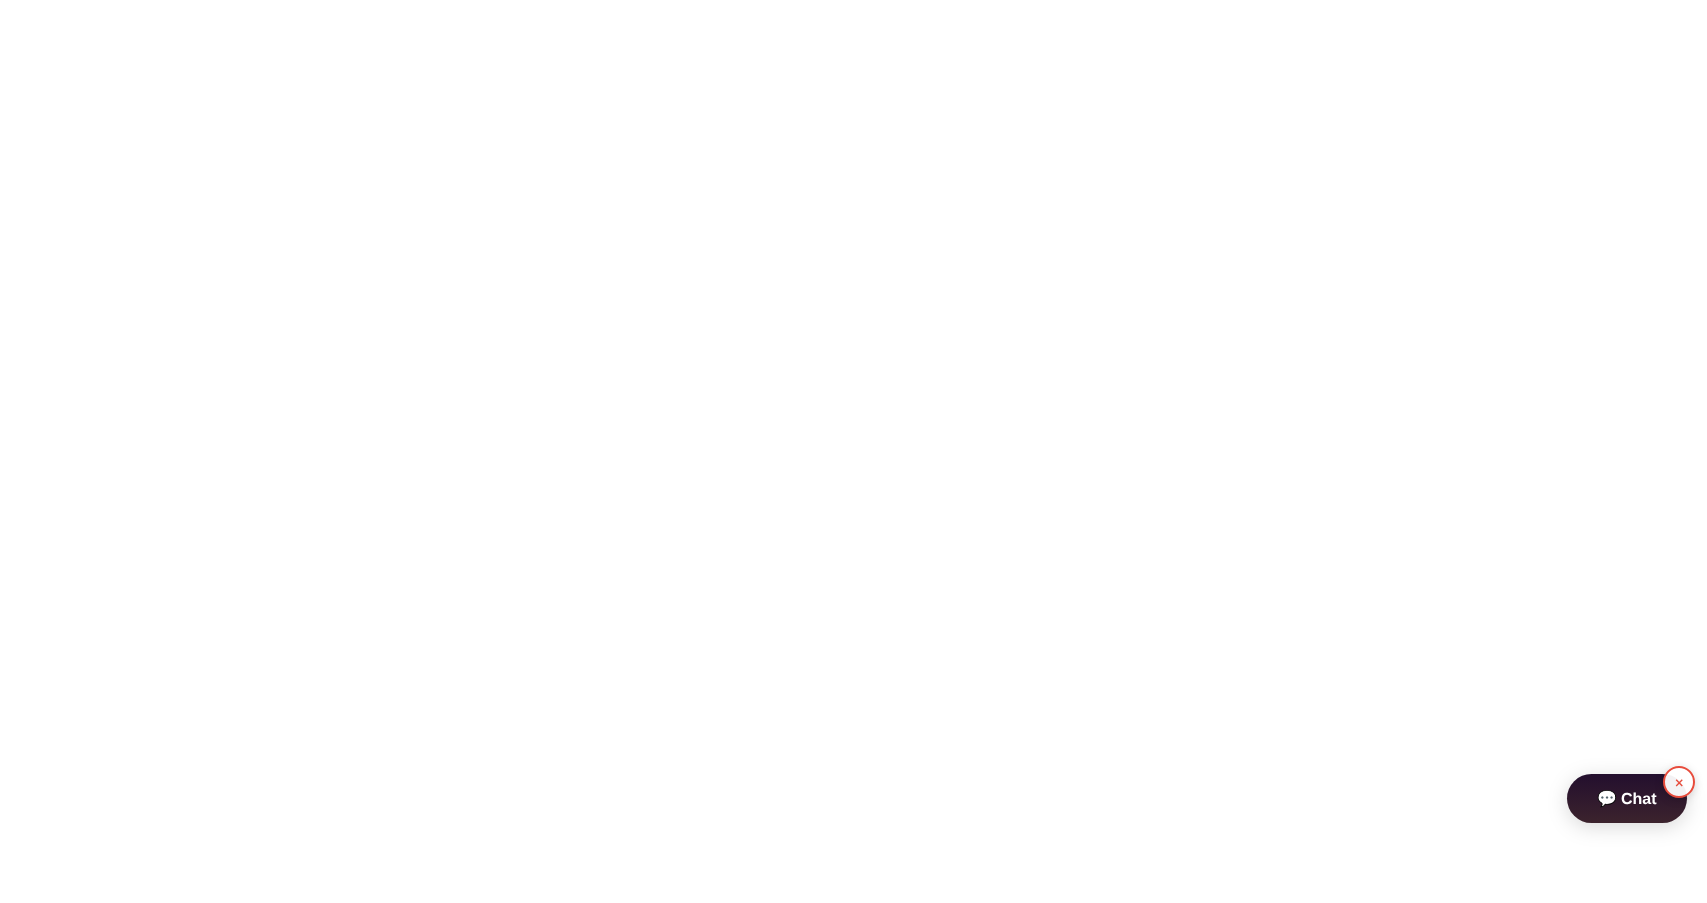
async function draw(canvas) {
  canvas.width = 1707
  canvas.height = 903
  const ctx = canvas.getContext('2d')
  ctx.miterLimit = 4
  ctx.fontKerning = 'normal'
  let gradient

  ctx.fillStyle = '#fff'
  ctx.fillRect(0, 0, 1707, 903)
  ctx.fillStyle = '#00000026'
  ctx.filter = 'blur(10px)'
  ctx.beginPath()
  ctx.roundRect(1567, 778, 120, 49, 24.5)
  ctx.fill()
  ctx.filter = 'none'
  gradient = ctx.createLinearGradient(1627, 774, 1627, 823)
  gradient.addColorStop(0, '#230f2e')
  gradient.addColorStop(1, '#3c232d')
  ctx.fillStyle = gradient
  ctx.beginPath()
  ctx.roundRect(1567, 774, 120, 49, 24.5)
  ctx.fill()
  ctx.save()
  ctx.beginPath()
  ctx.moveTo(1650, 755)
  ctx.lineTo(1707, 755)
  ctx.lineTo(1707, 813)
  ctx.lineTo(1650, 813)
  ctx.closePath()
  ctx.moveTo(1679, 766)
  ctx.bezierCurveTo(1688, 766, 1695, 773, 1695, 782)
  ctx.bezierCurveTo(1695, 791, 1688, 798, 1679, 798)
  ctx.bezierCurveTo(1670, 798, 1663, 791, 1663, 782)
  ctx.bezierCurveTo(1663, 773, 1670, 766, 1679, 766)
  ctx.closePath()
  ctx.clip('evenodd')
  ctx.fillStyle = '#00000026'
  ctx.filter = 'blur(4px)'
  ctx.beginPath()
  ctx.roundRect(1663, 768, 32, 32, 16)
  ctx.fill()
  ctx.filter = 'none'
  ctx.restore()
  ctx.fillStyle = '#fffffff2'
  ctx.beginPath()
  ctx.arc(1679, 782, 15, 0, 2 * Math.PI)
  ctx.fill()
  ctx.strokeStyle = '#e74c3c'
  ctx.lineWidth = 2
  ctx.stroke()
  ctx.font = '16px Roboto'
  ctx.fillStyle = '#e74c3c'
  ctx.fillText('×', 1675, 788)
  ctx.font = 'bold 16px Noto Color Emoji'
  ctx.fillStyle = '#fff'
  ctx.fillText('💬', 1597, 804)
  ctx.font = 'bold 16px Liberation Sans'
  ctx.fillText('Chat', 1621, 804)
}

draw(document.querySelector('canvas'))
